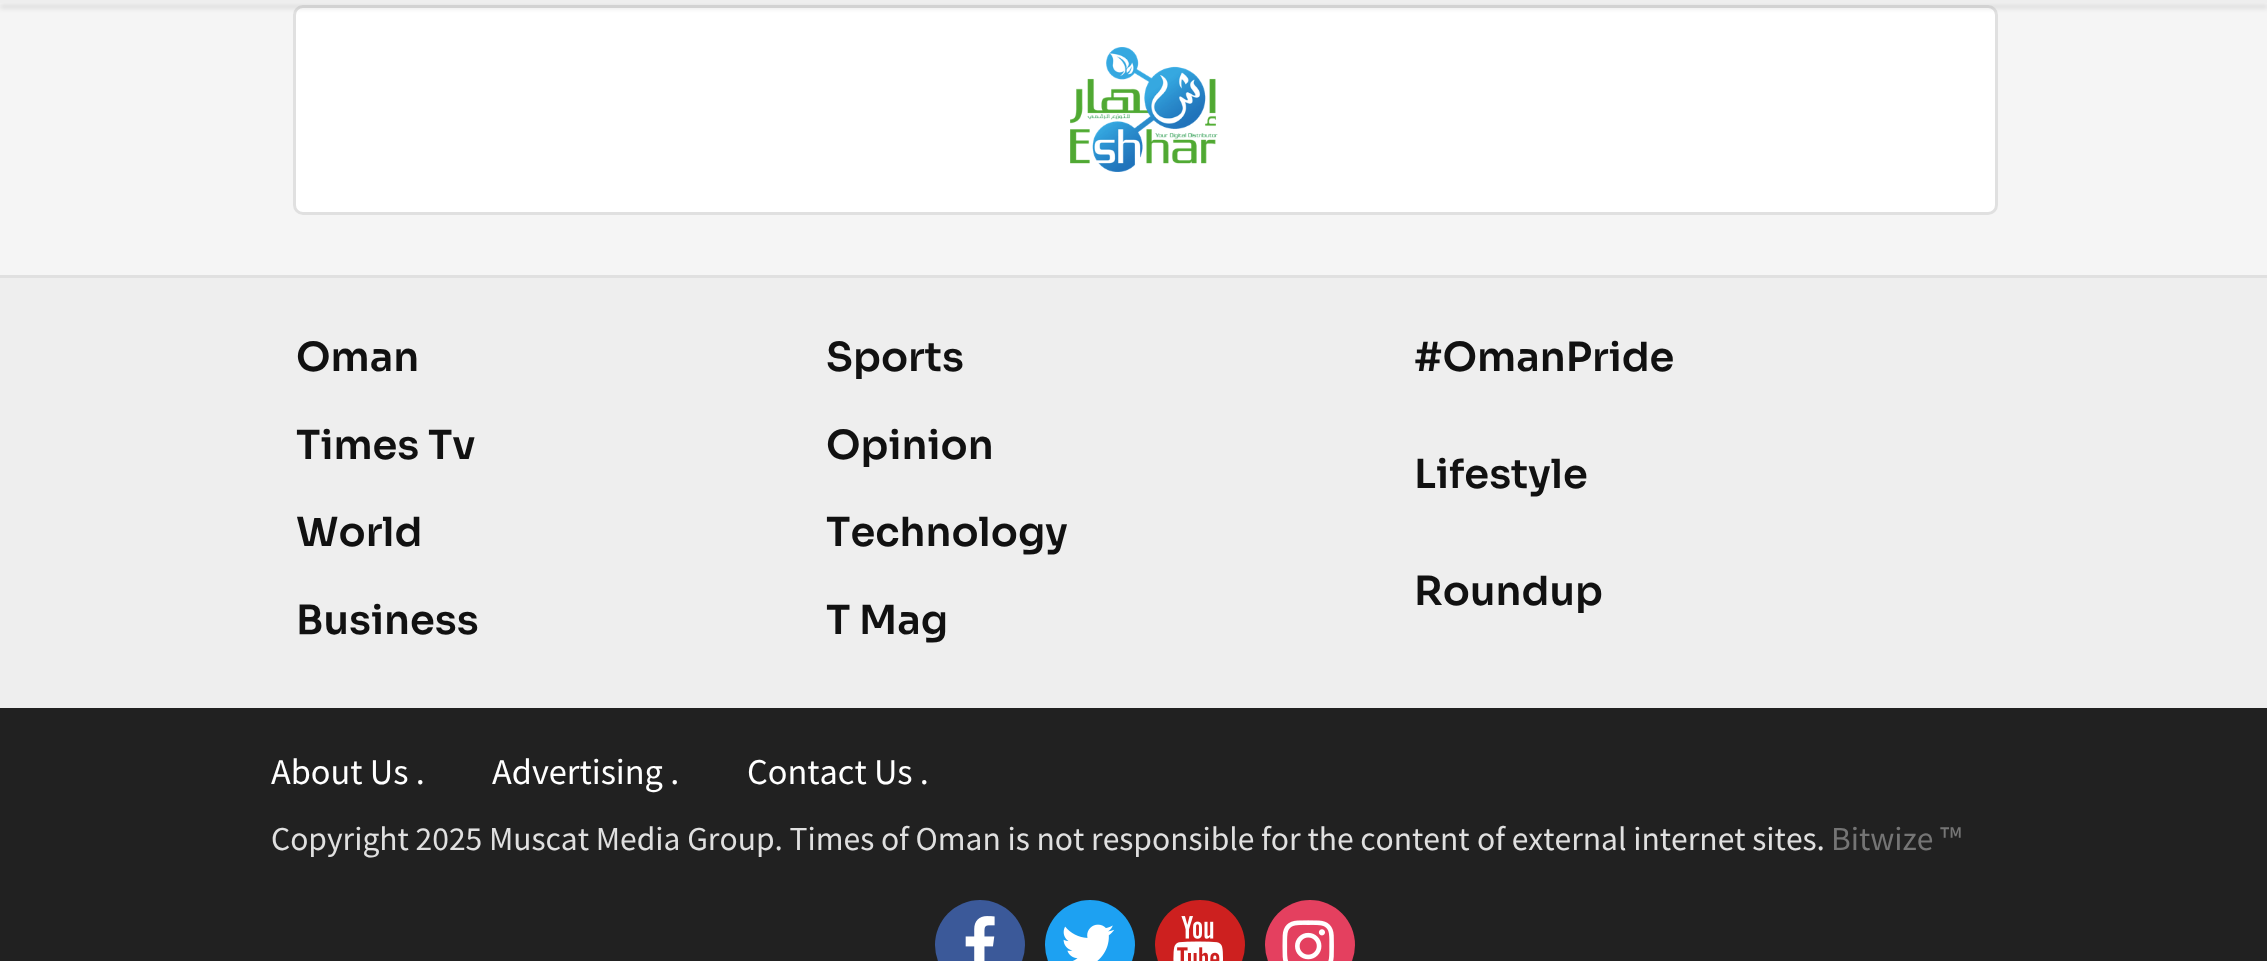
async function draw(canvas) {
  canvas.width = 2267
  canvas.height = 961
  const ctx = canvas.getContext('2d')
  ctx.miterLimit = 4
  ctx.fontKerning = 'none'
  async function loadImage(src) {
    const img = new Image()
    img.src = src
    await img.decode()
    return img
  }

  ctx.fillStyle = '#f5f5f5'
  ctx.fillRect(0, 0, 2267, 961)
  ctx.fillStyle = '#fff'
  ctx.beginPath()
  ctx.roundRect(294.5, 6.5, 1702, 207, 8.5)
  ctx.fill()
  ctx.strokeStyle = '#e0e0e0'
  ctx.lineWidth = 3
  ctx.stroke()
  ctx.fillStyle = '#00000024'
  ctx.filter = 'blur(2.5px)'
  ctx.beginPath()
  ctx.rect(0, 5, 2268, 3)
  ctx.fill()
  ctx.filter = 'none'
  ctx.fillStyle = '#eee'
  ctx.fillRect(0, 0, 2267, 3)
  ctx.drawImage(await loadImage('image0.png'), 1070, 47, 148, 125)
  ctx.fillRect(0, 278, 2267, 430)
  ctx.fillStyle = '#e0e0e0'
  ctx.fillRect(0, 275, 2267, 3)
  ctx.font = '600 40px Sora'
  ctx.fillStyle = '#111'
  ctx.fillText('Oman', 296, 371)
  ctx.fillText('Sports', 826, 371)
  ctx.fillText('#OmanPride', 1414, 371)
  ctx.fillText('Times Tv', 296, 459)
  ctx.fillText('Opinion', 826, 459)
  ctx.fillText('Lifestyle', 1414, 488)
  ctx.fillText('World', 296, 546)
  ctx.fillText('Technology', 826, 546)
  ctx.fillText('Roundup', 1414, 605)
  ctx.fillText('Business', 296, 634)
  ctx.fillText('T Mag', 826, 634)
  ctx.fillStyle = '#212121'
  ctx.fillRect(0, 708, 2267, 253)
  ctx.font = '32.5px Noto Sans JP'
  ctx.fillStyle = '#fff'
  ctx.fillText('About Us .', 271, 784)
  ctx.fillText('Advertising .', 492, 784)
  ctx.fillText('Contact Us .', 747, 784)
  ctx.font = '30px Noto Sans JP'
  ctx.fillStyle = '#e0e0e0'
  ctx.fillText('Copyright 2025 Muscat Media Group. Times of Oman is not responsible for the content', 271, 850)
  ctx.fillText('of external internet sites.', 1477, 850)
  ctx.fillStyle = '#757575'
  ctx.fillText('Bitwize ™', 1831, 850)
  ctx.fillStyle = '#3b5999'
  ctx.beginPath()
  ctx.arc(980, 945, 45, 0, 2 * Math.PI)
  ctx.fill()
  ctx.drawImage(await loadImage('image1.png'), 965, 916, 30, 45)
  ctx.fillStyle = '#1da1f2'
  ctx.beginPath()
  ctx.arc(1090, 945, 45, 0, 2 * Math.PI)
  ctx.fill()
  ctx.drawImage(await loadImage('image2.png'), 1063, 924, 52, 37)
  ctx.fillStyle = '#cd201f'
  ctx.beginPath()
  ctx.arc(1200, 945, 45, 0, 2 * Math.PI)
  ctx.fill()
  ctx.drawImage(await loadImage('image3.png'), 1173, 916, 50, 45)
  ctx.fillStyle = '#e4405f'
  ctx.beginPath()
  ctx.arc(1310, 945, 45, 0, 2 * Math.PI)
  ctx.fill()
  ctx.drawImage(await loadImage('image4.png'), 1282, 920, 52, 41)
}

draw(document.querySelector('canvas'))
